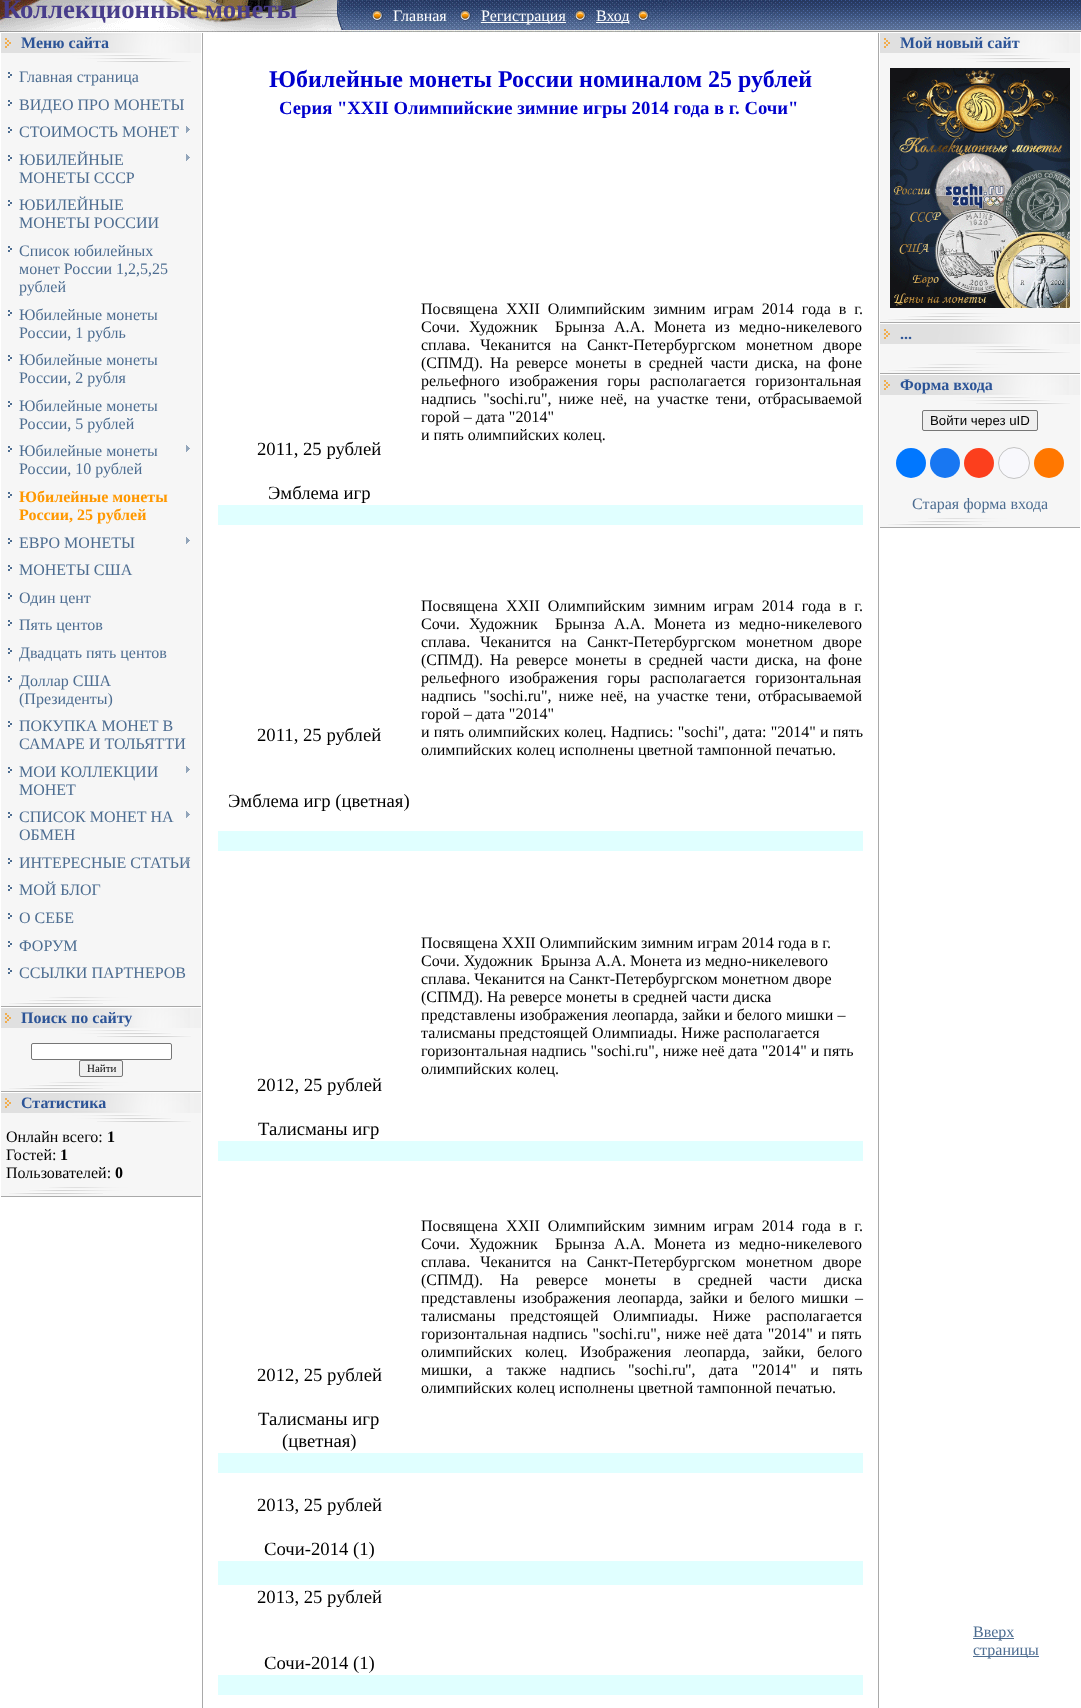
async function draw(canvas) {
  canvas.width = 1081
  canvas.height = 1708
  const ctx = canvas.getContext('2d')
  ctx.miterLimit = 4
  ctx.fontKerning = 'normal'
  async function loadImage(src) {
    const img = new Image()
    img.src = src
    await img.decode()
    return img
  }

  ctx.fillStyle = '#fff'
  ctx.fillRect(0, 0, 1081, 1708)
  ctx.drawImage(await loadImage('image0.png'), 777, 0, 304, 32)
  ctx.drawImage(await loadImage('image1.png'), 0, 0, 777, 32)
  ctx.font = 'bold 26.75px Liberation Serif'
  ctx.fillStyle = '#483d8b'
  ctx.fillText('Коллекционные монеты', 2, 18)
  ctx.drawImage(await loadImage('image2.png'), 372, 10, 11, 11)
  ctx.font = '16px Liberation Serif'
  ctx.fillStyle = '#fff'
  ctx.fillText('Главная', 393, 21)
  ctx.fillStyle = '#4d6d91'
  ctx.fillRect(393, 22, 54, 1)
  ctx.drawImage(await loadImage('image3.png'), 460, 10, 11, 11)
  ctx.fillStyle = '#fff'
  ctx.fillRect(481, 22, 85, 1)
  ctx.fillText('Регистрация', 481, 21)
  ctx.drawImage(await loadImage('image4.png'), 575, 10, 11, 11)
  ctx.fillRect(596, 22, 33, 1)
  ctx.fillText('Вход', 596, 21)
  ctx.drawImage(await loadImage('image5.png'), 638, 10, 11, 11)
  ctx.drawImage(await loadImage('image6.png'), 1, 33, 200, 20)
  ctx.font = 'bold 16px Liberation Serif'
  ctx.fillStyle = '#2c5497'
  ctx.fillText('Меню сайта', 21, 48)
  ctx.drawImage(await loadImage('image7.png'), 1, 53, 200, 10)
  ctx.fillStyle = '#f6f6f6'
  ctx.fillRect(1, 63, 200, 934)
  ctx.drawImage(await loadImage('image8.png'), 8, 72, 4, 6)
  ctx.font = '16px Liberation Serif'
  ctx.fillStyle = '#4d6d91'
  ctx.fillText('Главная страница', 19, 82)
  ctx.drawImage(await loadImage('image8.png'), 8, 100, 4, 6)
  ctx.fillText('ВИДЕО ПРО МОНЕТЫ', 19, 110)
  ctx.drawImage(await loadImage('image8.png'), 8, 127, 4, 6)
  ctx.fillText('СТОИМОСТЬ МОНЕТ', 19, 137)
  ctx.drawImage(await loadImage('image9.png'), 186, 126, 4, 7)
  ctx.drawImage(await loadImage('image8.png'), 8, 155, 4, 6)
  ctx.fillText('ЮБИЛЕЙНЫЕ', 19, 165)
  ctx.drawImage(await loadImage('image9.png'), 186, 154, 4, 7)
  ctx.fillText('МОНЕТЫ СССР', 19, 183)
  ctx.drawImage(await loadImage('image8.png'), 8, 200, 4, 6)
  ctx.fillText('ЮБИЛЕЙНЫЕ', 19, 210)
  ctx.fillText('МОНЕТЫ РОССИИ', 19, 228)
  ctx.drawImage(await loadImage('image8.png'), 8, 246, 4, 6)
  ctx.fillText('Список юбилейных', 19, 256)
  ctx.fillText('монет России 1,2,5,25', 19, 274)
  ctx.fillText('рублей', 19, 292)
  ctx.drawImage(await loadImage('image8.png'), 8, 310, 4, 6)
  ctx.fillText('Юбилейные монеты', 19, 320)
  ctx.fillText('России, 1 рубль', 19, 338)
  ctx.drawImage(await loadImage('image8.png'), 8, 355, 4, 6)
  ctx.fillText('Юбилейные монеты', 19, 365)
  ctx.fillText('России, 2 рубля', 19, 383)
  ctx.drawImage(await loadImage('image8.png'), 8, 401, 4, 6)
  ctx.fillText('Юбилейные монеты', 19, 411)
  ctx.fillText('России, 5 рублей', 19, 429)
  ctx.drawImage(await loadImage('image8.png'), 8, 446, 4, 6)
  ctx.fillText('Юбилейные монеты', 19, 456)
  ctx.drawImage(await loadImage('image9.png'), 186, 445, 4, 7)
  ctx.fillText('России, 10 рублей', 19, 474)
  ctx.drawImage(await loadImage('image8.png'), 8, 492, 4, 6)
  ctx.font = 'bold 16px Liberation Serif'
  ctx.fillStyle = '#ff9800'
  ctx.fillText('Юбилейные монеты', 19, 502)
  ctx.fillText('России, 25 рублей', 19, 520)
  ctx.drawImage(await loadImage('image8.png'), 8, 538, 4, 6)
  ctx.font = '16px Liberation Serif'
  ctx.fillStyle = '#4d6d91'
  ctx.fillText('ЕВРО МОНЕТЫ', 19, 548)
  ctx.drawImage(await loadImage('image9.png'), 186, 537, 4, 7)
  ctx.drawImage(await loadImage('image8.png'), 8, 565, 4, 6)
  ctx.fillText('МОНЕТЫ США', 19, 575)
  ctx.drawImage(await loadImage('image8.png'), 8, 593, 4, 6)
  ctx.fillText('Один цент', 19, 603)
  ctx.drawImage(await loadImage('image8.png'), 8, 620, 4, 6)
  ctx.fillText('Пять центов', 19, 630)
  ctx.drawImage(await loadImage('image8.png'), 8, 648, 4, 6)
  ctx.fillText('Двадцать пять центов', 19, 658)
  ctx.drawImage(await loadImage('image8.png'), 8, 676, 4, 6)
  ctx.fillText('Доллар США', 19, 686)
  ctx.fillText('(Президенты)', 19, 704)
  ctx.drawImage(await loadImage('image8.png'), 8, 721, 4, 6)
  ctx.fillText('ПОКУПКА МОНЕТ В', 19, 731)
  ctx.fillText('САМАРЕ И ТОЛЬЯТТИ', 19, 749)
  ctx.drawImage(await loadImage('image8.png'), 8, 767, 4, 6)
  ctx.fillText('МОИ КОЛЛЕКЦИИ', 19, 777)
  ctx.drawImage(await loadImage('image9.png'), 186, 766, 4, 7)
  ctx.fillText('МОНЕТ', 19, 795)
  ctx.drawImage(await loadImage('image8.png'), 8, 812, 4, 6)
  ctx.fillText('СПИСОК МОНЕТ НА', 19, 822)
  ctx.drawImage(await loadImage('image9.png'), 186, 811, 4, 7)
  ctx.fillText('ОБМЕН', 19, 840)
  ctx.drawImage(await loadImage('image8.png'), 8, 858, 4, 6)
  ctx.fillText('ИНТЕРЕСНЫЕ СТАТЬИ', 19, 868)
  ctx.drawImage(await loadImage('image10.png'), 186, 857, 4, 7)
  ctx.drawImage(await loadImage('image8.png'), 8, 885, 4, 6)
  ctx.fillText('МОЙ БЛОГ', 19, 895)
  ctx.drawImage(await loadImage('image8.png'), 8, 913, 4, 6)
  ctx.fillText('О СЕБЕ', 19, 923)
  ctx.drawImage(await loadImage('image8.png'), 8, 941, 4, 6)
  ctx.fillText('ФОРУМ', 19, 951)
  ctx.drawImage(await loadImage('image8.png'), 8, 968, 4, 6)
  ctx.fillText('ССЫЛКИ ПАРТНЕРОВ', 19, 978)
  ctx.drawImage(await loadImage('image11.png'), 1, 997, 200, 10)
  ctx.drawImage(await loadImage('image6.png'), 1, 1008, 200, 20)
  ctx.font = 'bold 16px Liberation Serif'
  ctx.fillStyle = '#2c5497'
  ctx.fillText('Поиск по сайту', 21, 1023)
  ctx.drawImage(await loadImage('image7.png'), 1, 1028, 200, 10)
  ctx.fillStyle = '#f6f6f6'
  ctx.fillRect(1, 1038, 200, 44)
  ctx.fillStyle = '#fff'
  ctx.beginPath()
  ctx.roundRect(31.5, 1043.5, 140, 16, 1.5)
  ctx.fill()
  ctx.strokeStyle = '#767676'
  ctx.stroke()
  ctx.fillStyle = '#efefef'
  ctx.beginPath()
  ctx.roundRect(79.5, 1060.5, 43, 16, 1.5)
  ctx.fill()
  ctx.stroke()
  ctx.font = '11px Liberation Serif'
  ctx.fillStyle = '#000'
  ctx.fillText('Найти', 87, 1072)
  ctx.drawImage(await loadImage('image11.png'), 1, 1082, 200, 10)
  ctx.drawImage(await loadImage('image6.png'), 1, 1093, 200, 20)
  ctx.font = 'bold 16px Liberation Serif'
  ctx.fillStyle = '#2c5497'
  ctx.fillText('Статистика', 21, 1108)
  ctx.drawImage(await loadImage('image7.png'), 1, 1113, 200, 10)
  ctx.fillStyle = '#f6f6f6'
  ctx.fillRect(1, 1123, 200, 64)
  ctx.font = '16px Liberation Serif'
  ctx.fillStyle = '#000'
  ctx.fillText('Онлайн всего:', 6, 1142)
  ctx.font = 'bold 16px Liberation Serif'
  ctx.fillText('1', 107, 1142)
  ctx.font = '16px Liberation Serif'
  ctx.fillText('Гостей:', 6, 1160)
  ctx.font = 'bold 16px Liberation Serif'
  ctx.fillText('1', 60, 1160)
  ctx.font = '16px Liberation Serif'
  ctx.fillText('Пользователей:', 6, 1178)
  ctx.font = 'bold 16px Liberation Serif'
  ctx.fillText('0', 115, 1178)
  ctx.drawImage(await loadImage('image11.png'), 1, 1187, 200, 10)
  ctx.drawImage(await loadImage('image6.png'), 880, 33, 200, 20)
  ctx.fillStyle = '#2c5497'
  ctx.fillText('Мой новый сайт', 900, 48)
  ctx.drawImage(await loadImage('image7.png'), 880, 53, 200, 10)
  ctx.fillStyle = '#f6f6f6'
  ctx.fillRect(880, 63, 200, 250)
  ctx.drawImage(await loadImage('image12.png'), 890, 68, 180, 240)
  ctx.drawImage(await loadImage('image11.png'), 880, 313, 200, 10)
  ctx.drawImage(await loadImage('image6.png'), 880, 324, 200, 20)
  ctx.fillStyle = '#2c5497'
  ctx.fillText('...', 900, 339)
  ctx.drawImage(await loadImage('image7.png'), 880, 344, 200, 10)
  ctx.fillStyle = '#f6f6f6'
  ctx.fillRect(880, 354, 200, 10)
  ctx.drawImage(await loadImage('image11.png'), 880, 364, 200, 10)
  ctx.drawImage(await loadImage('image6.png'), 880, 375, 200, 20)
  ctx.fillStyle = '#2c5497'
  ctx.fillText('Форма входа', 900, 390)
  ctx.drawImage(await loadImage('image7.png'), 880, 395, 200, 10)
  ctx.fillStyle = '#f6f6f6'
  ctx.fillRect(880, 405, 200, 113)
  ctx.fillStyle = '#efefef'
  ctx.beginPath()
  ctx.roundRect(922.5, 410.5, 115, 20, 1.5)
  ctx.fill()
  ctx.stroke()
  ctx.font = '13.25px Liberation Sans'
  ctx.fillStyle = '#000'
  ctx.fillText('Войти через uID', 930, 425)
  ctx.fillStyle = '#07f'
  ctx.beginPath()
  ctx.arc(911, 463, 15, 0, 2 * Math.PI)
  ctx.fill()
  ctx.fillStyle = '#1877f2'
  ctx.beginPath()
  ctx.arc(945, 463, 15, 0, 2 * Math.PI)
  ctx.fill()
  ctx.fillStyle = '#fc3f1d'
  ctx.beginPath()
  ctx.arc(979, 463, 15, 0, 2 * Math.PI)
  ctx.fill()
  ctx.fillStyle = '#f8f8fc'
  ctx.beginPath()
  ctx.arc(1014, 463, 15.5, 0, 2 * Math.PI)
  ctx.fill()
  ctx.strokeStyle = '#c4c4c4'
  ctx.stroke()
  ctx.fillStyle = '#f70'
  ctx.beginPath()
  ctx.arc(1049, 463, 15, 0, 2 * Math.PI)
  ctx.fill()
  ctx.font = '16px Liberation Serif'
  ctx.fillStyle = '#4d6d91'
  ctx.fillText('Старая форма входа', 912, 509)
  ctx.drawImage(await loadImage('image11.png'), 880, 518, 200, 10)
  ctx.fillStyle = '#a9a9a9'
  ctx.fillRect(878, 33, 1, 1675)
  ctx.fillRect(202, 33, 1, 1675)
  ctx.font = 'bold 24px Liberation Serif'
  ctx.fillStyle = '#0000cd'
  ctx.fillText('Юбилейные монеты России номиналом 25 рублей', 269, 87)
  ctx.font = 'bold 18.7px Liberation Serif'
  ctx.fillText('Серия "XXII Олимпийские зимние игры 2014 года в г. Сочи"', 279, 114)
  ctx.font = '16px Liberation Serif'
  ctx.fillStyle = '#000'
  ctx.fillText('Посвящена', 421, 314)
  ctx.wordSpacing = '4px'
  ctx.fillText('XXII Олимпийским зимним играм 2014 года в г.', 506, 314)
  ctx.wordSpacing = '0px'
  ctx.fillText('Сочи.', 421, 332)
  ctx.fillText('Художник', 469, 332)
  ctx.wordSpacing = '5px'
  ctx.fillText('Брынза А.А. Монета из медно-никелевого', 555, 332)
  ctx.wordSpacing = '6px'
  ctx.fillText('сплава. Чеканится на', 421, 350)
  ctx.fillText('Cанкт-Петербургском монетном дворе', 587, 350)
  ctx.wordSpacing = '0px'
  ctx.fillText('(СПМД).', 421, 368)
  ctx.wordSpacing = '3.25px'
  ctx.fillText('На реверсе монеты в средней части диска, на фоне', 490, 368)
  ctx.wordSpacing = '5.5px'
  ctx.fillText('рельефного изображения горы располагается горизонтальная', 421, 386)
  ctx.wordSpacing = '3px'
  ctx.fillText('надпись "sochi.ru", ниже неё, на участке тени, отбрасываемой', 421, 404)
  ctx.wordSpacing = '0px'
  ctx.fillText('горой – дата "2014"', 421, 422)
  ctx.fillText('и пять олимпийских колец.', 421, 440)
  ctx.font = '18.7px Liberation Serif'
  ctx.fillText('2011, 25 рублей', 257, 455)
  ctx.fillText('Эмблема игр', 268, 499)
  ctx.fillStyle = '#e0ffff'
  ctx.fillRect(218, 505, 645, 20)
  ctx.font = '16px Liberation Serif'
  ctx.fillStyle = '#000'
  ctx.fillText('Посвящена', 421, 611)
  ctx.wordSpacing = '4px'
  ctx.fillText('XXII Олимпийским зимним играм 2014 года в г.', 506, 611)
  ctx.wordSpacing = '0px'
  ctx.fillText('Сочи.', 421, 629)
  ctx.fillText('Художник', 469, 629)
  ctx.wordSpacing = '5px'
  ctx.fillText('Брынза А.А. Монета из медно-никелевого', 555, 629)
  ctx.wordSpacing = '6px'
  ctx.fillText('сплава. Чеканится на', 421, 647)
  ctx.fillText('Cанкт-Петербургском монетном дворе', 587, 647)
  ctx.wordSpacing = '0px'
  ctx.fillText('(СПМД).', 421, 665)
  ctx.wordSpacing = '3.25px'
  ctx.fillText('На реверсе монеты в средней части диска, на фоне', 490, 665)
  ctx.wordSpacing = '5.5px'
  ctx.fillText('рельефного изображения горы располагается горизонтальная', 421, 683)
  ctx.wordSpacing = '3px'
  ctx.fillText('надпись "sochi.ru", ниже неё, на участке тени, отбрасываемой', 421, 701)
  ctx.wordSpacing = '0px'
  ctx.fillText('горой – дата "2014"', 421, 719)
  ctx.wordSpacing = '0.25px'
  ctx.fillText('и пять олимпийских колец. Надпись: "sochi", дата: "2014" и пять', 421, 737)
  ctx.wordSpacing = '0px'
  ctx.fillText('олимпийских колец исполнены цветной тампонной печатью.', 421, 755)
  ctx.font = '18.7px Liberation Serif'
  ctx.fillText('2011, 25 рублей', 257, 741)
  ctx.fillText('Эмблема игр (цветная)', 228, 807)
  ctx.fillStyle = '#e0ffff'
  ctx.fillRect(218, 831, 645, 20)
  ctx.font = '16px Liberation Serif'
  ctx.fillStyle = '#000'
  ctx.fillText('Посвящена XXII Олимпийским зимним играм 2014 года в г.', 421, 948)
  ctx.fillText('Сочи. Художник', 421, 966)
  ctx.fillText('Брынза А.А. Монета из медно-никелевого', 541, 966)
  ctx.fillText('сплава. Чеканится на Cанкт-Петербургском монетном дворе', 421, 984)
  ctx.fillText('(СПМД). На реверсе монеты в средней части диска', 421, 1002)
  ctx.fillText('представлены изображения леопарда, зайки и белого мишки –', 421, 1020)
  ctx.fillText('талисманы предстоящей Олимпиады. Ниже располагается', 421, 1038)
  ctx.fillText('горизонтальная надпись "sochi.ru", ниже неё дата "2014" и пять', 421, 1056)
  ctx.fillText('олимпийских колец.', 421, 1074)
  ctx.font = '18.7px Liberation Serif'
  ctx.fillText('2012, 25 рублей', 257, 1091)
  ctx.fillText('Талисманы игр', 258, 1135)
  ctx.fillStyle = '#e0ffff'
  ctx.fillRect(218, 1141, 645, 20)
  ctx.font = '16px Liberation Serif'
  ctx.fillStyle = '#000'
  ctx.fillText('Посвящена', 421, 1231)
  ctx.wordSpacing = '4px'
  ctx.fillText('XXII Олимпийским зимним играм 2014 года в г.', 506, 1231)
  ctx.wordSpacing = '0px'
  ctx.fillText('Сочи.', 421, 1249)
  ctx.fillText('Художник', 469, 1249)
  ctx.wordSpacing = '5px'
  ctx.fillText('Брынза А.А. Монета из медно-никелевого', 555, 1249)
  ctx.wordSpacing = '6px'
  ctx.fillText('сплава. Чеканится на Cанкт-Петербургском монетном дворе', 421, 1267)
  ctx.wordSpacing = '13px'
  ctx.fillText('(СПМД). На реверсе монеты в средней части диска', 421, 1285)
  ctx.wordSpacing = '2.5px'
  ctx.fillText('представлены изображения леопарда, зайки и белого мишки –', 421, 1303)
  ctx.wordSpacing = '10.5px'
  ctx.fillText('талисманы предстоящей Олимпиады. Ниже', 421, 1321)
  ctx.wordSpacing = '0px'
  ctx.fillText('располагается', 766, 1321)
  ctx.wordSpacing = '1px'
  ctx.fillText('горизонтальная надпись "sochi.ru", ниже неё дата "2014" и пять', 421, 1339)
  ctx.wordSpacing = '8.5px'
  ctx.fillText('олимпийских колец. Изображения леопарда, зайки, белого', 421, 1357)
  ctx.wordSpacing = '9.5px'
  ctx.fillText('мишки, а также надпись', 421, 1375)
  ctx.wordSpacing = '0px'
  ctx.fillText('"sochi.ru', 628, 1375)
  ctx.wordSpacing = '9.5px'
  ctx.fillText('", дата "2014" и пять', 685, 1375)
  ctx.wordSpacing = '0px'
  ctx.fillText('олимпийских колец исполнены цветной тампонной печатью.', 421, 1393)
  ctx.font = '18.7px Liberation Serif'
  ctx.fillText('2012, 25 рублей', 257, 1381)
  ctx.fillText('Талисманы игр', 258, 1425)
  ctx.fillText('(цветная)', 282, 1447)
  ctx.fillStyle = '#e0ffff'
  ctx.fillRect(218, 1453, 645, 20)
  ctx.fillStyle = '#000'
  ctx.fillText('2013, 25 рублей', 257, 1511)
  ctx.fillText('Сочи-2014 (1)', 264, 1555)
  ctx.fillStyle = '#e0ffff'
  ctx.fillRect(218, 1561, 645, 24)
  ctx.fillStyle = '#000'
  ctx.fillText('2013, 25 рублей', 257, 1603)
  ctx.fillText('Сочи-2014 (1)', 264, 1669)
  ctx.fillStyle = '#e0ffff'
  ctx.fillRect(218, 1675, 645, 20)
  ctx.fillStyle = '#4d6d91'
  ctx.fillRect(973, 1638, 41, 1)
  ctx.font = '16px Liberation Serif'
  ctx.fillText('Вверх', 973, 1637)
  ctx.fillRect(973, 1656, 66, 1)
  ctx.fillText('страницы', 973, 1655)
}

draw(document.querySelector('canvas'))
